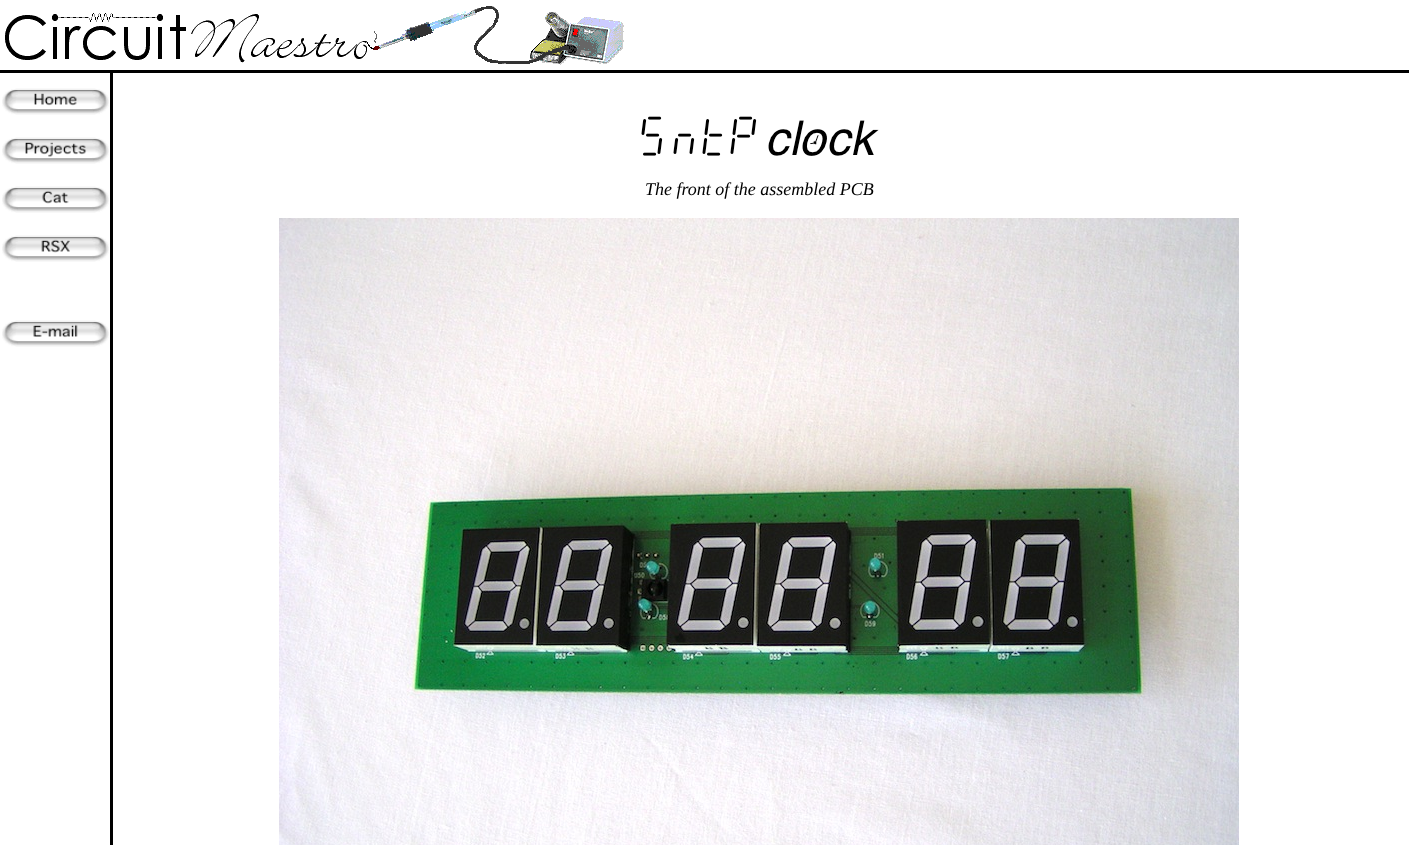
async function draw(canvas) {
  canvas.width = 1409
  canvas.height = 845
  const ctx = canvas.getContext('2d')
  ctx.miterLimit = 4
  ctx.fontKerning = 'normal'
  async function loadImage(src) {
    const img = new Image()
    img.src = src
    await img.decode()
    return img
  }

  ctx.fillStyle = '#fff'
  ctx.fillRect(0, 0, 1409, 845)
  ctx.fillStyle = '#000'
  ctx.fillRect(0, 70, 1409, 3)
  ctx.drawImage(await loadImage('image0.png'), 5, 6, 619, 59)
  ctx.fillRect(110, 73, 3, 772)
  ctx.drawImage(await loadImage('image1.png'), 2, 88, 107, 27)
  ctx.drawImage(await loadImage('image2.png'), 2, 137, 107, 27)
  ctx.drawImage(await loadImage('image3.png'), 2, 186, 107, 27)
  ctx.drawImage(await loadImage('image4.png'), 2, 235, 107, 27)
  ctx.drawImage(await loadImage('image5.png'), 2, 320, 107, 27)
  ctx.drawImage(await loadImage('image6.png'), 641, 116, 238, 40)
  ctx.font = 'italic 18px Liberation Serif'
  ctx.fillText('The front of the assembled PCB', 645, 195)
  ctx.drawImage(await loadImage('image7.png'), 279, 218, 960, 627)
}

draw(document.querySelector('canvas'))
